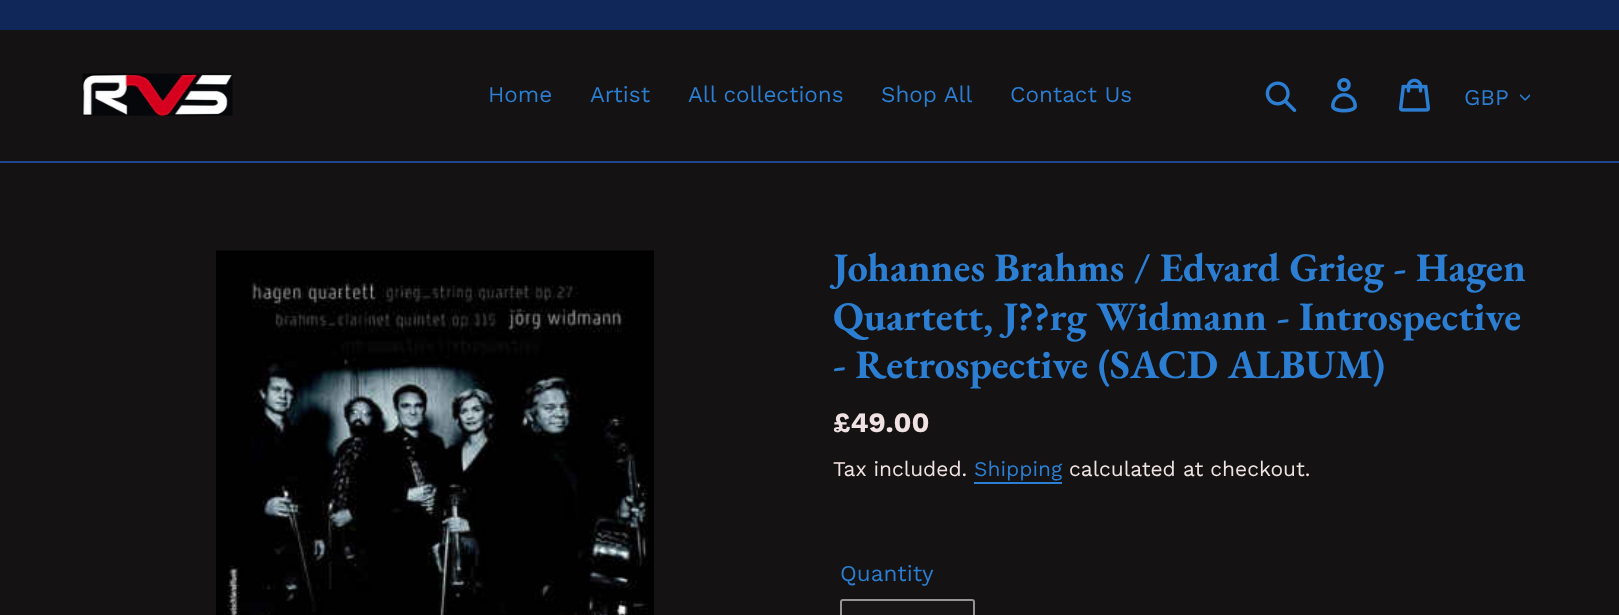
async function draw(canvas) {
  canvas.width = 1619
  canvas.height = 615
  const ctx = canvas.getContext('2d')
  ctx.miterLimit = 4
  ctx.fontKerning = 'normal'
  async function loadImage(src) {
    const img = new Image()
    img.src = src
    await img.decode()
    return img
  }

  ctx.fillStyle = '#141212'
  ctx.fillRect(0, 0, 1619, 615)
  ctx.fillStyle = '#0f2759'
  ctx.fillRect(0, 0, 1619, 30)
  ctx.fillStyle = '#20448d'
  ctx.fillRect(0, 161, 1619, 2)
  ctx.drawImage(await loadImage('image0.png'), 82, 73, 151, 43)
  ctx.font = '22.5px Work Sans'
  ctx.fillStyle = '#2b7ed1'
  ctx.fillText('Home', 488, 102)
  ctx.fillText('Artist', 590, 102)
  ctx.fillText('All collections', 688, 102)
  ctx.fillText('Shop All', 881, 102)
  ctx.fillText('Contact Us', 1010, 102)
  ctx.drawImage(await loadImage('image1.png'), 1265, 81, 32, 32)
  ctx.drawImage(await loadImage('image2.png'), 1331, 78, 26, 35)
  ctx.drawImage(await loadImage('image3.png'), 1398, 78, 32, 34)
  ctx.fillText('GBP', 1464, 105)
  ctx.drawImage(await loadImage('image4.png'), 1520, 94, 10, 7)
  ctx.drawImage(await loadImage('image5.png'), 216, 250, 438, 365)
  ctx.font = 'bold 40.5px EB Garamond'
  ctx.fillText('Johannes Brahms / Edvard Grieg - Hagen', 833, 281)
  ctx.fillText('Quartett, J??rg Widmann - Introspective', 833, 330)
  ctx.fillText('- Retrospective (SACD ALBUM)', 833, 378)
  ctx.font = 'bold 28px Work Sans'
  ctx.fillStyle = '#f0e2e2'
  ctx.fillText('£49.00', 833, 432)
  ctx.font = '21px Work Sans'
  ctx.fillText('Tax included.', 833, 476)
  ctx.fillStyle = '#2b7ed1'
  ctx.fillText('Shipping', 974, 476)
  ctx.fillRect(974, 482, 88, 2)
  ctx.fillStyle = '#f0e2e2'
  ctx.fillText('calculated at checkout.', 1069, 476)
  ctx.font = '22.5px Work Sans'
  ctx.fillStyle = '#2b7ed1'
  ctx.fillText('Quantity', 840, 581)
  ctx.fillStyle = '#171515'
  ctx.beginPath()
  ctx.roundRect(841, 600, 133, 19, 2)
  ctx.fill()
  ctx.strokeStyle = '#949494'
  ctx.lineWidth = 2
  ctx.stroke()
}

draw(document.querySelector('canvas'))
